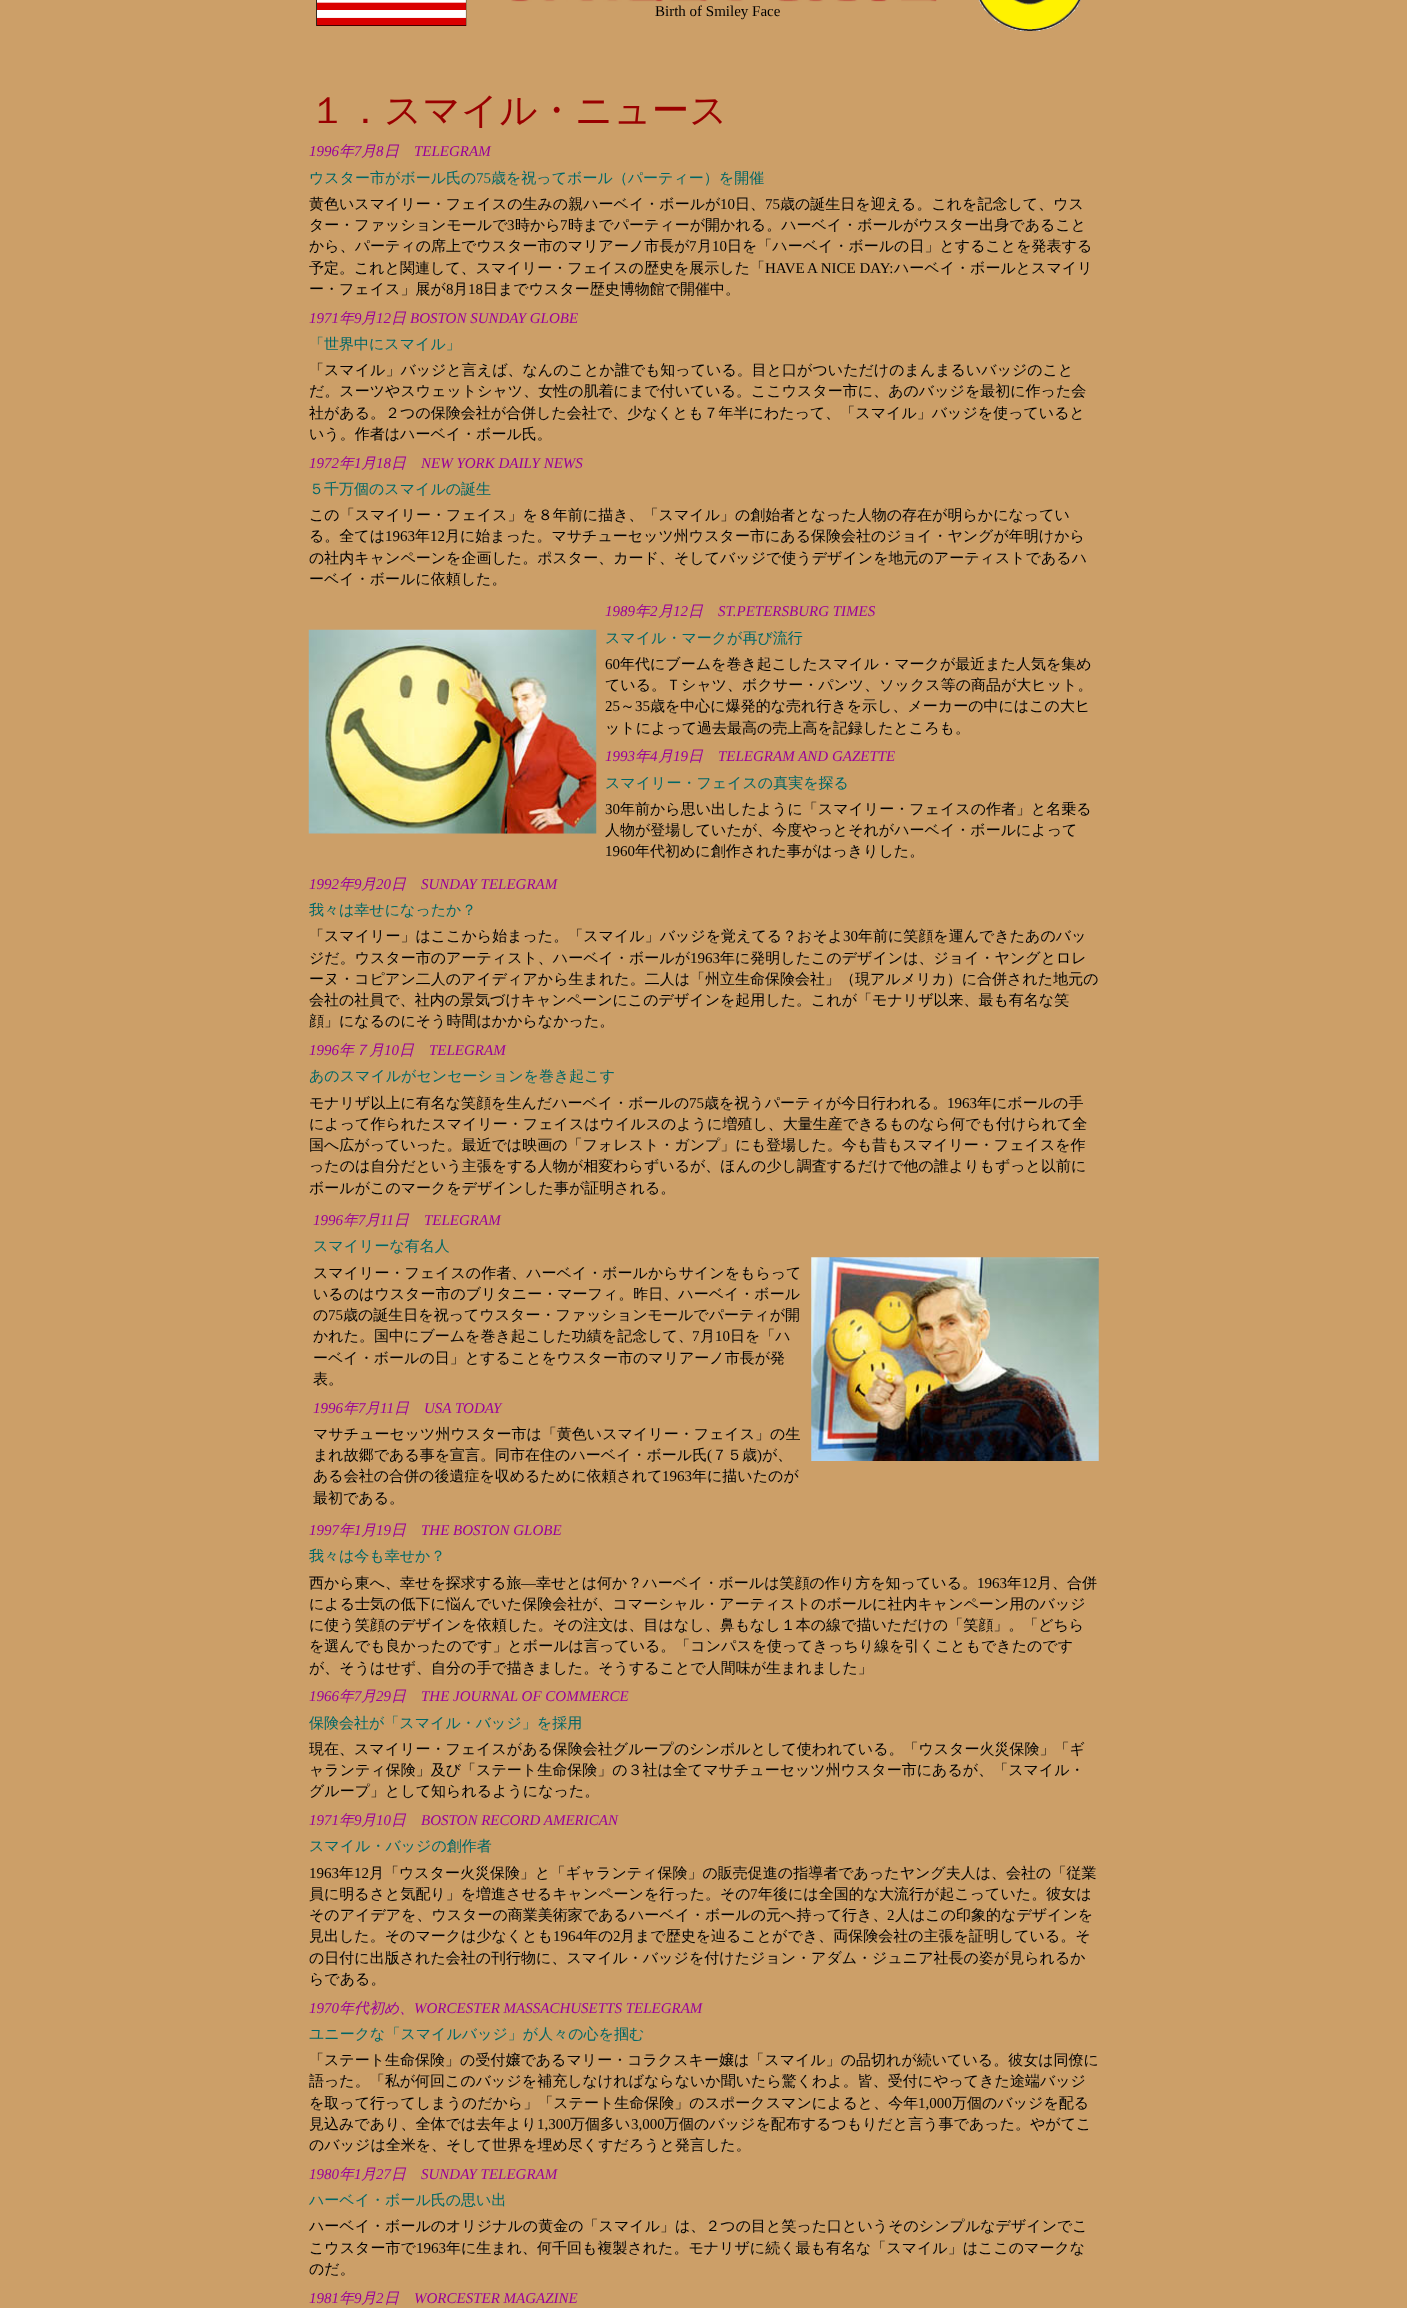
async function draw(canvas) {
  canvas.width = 1407
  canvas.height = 2308
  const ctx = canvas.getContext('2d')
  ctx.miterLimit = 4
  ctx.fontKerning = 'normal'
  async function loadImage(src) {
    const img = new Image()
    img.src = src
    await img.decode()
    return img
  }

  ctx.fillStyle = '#cc9f68'
  ctx.fillRect(0, 0, 1407, 2308)
  ctx.drawImage(await loadImage('image0.png'), 316, 0, 151, 26)
  ctx.drawImage(await loadImage('image1.png'), 511, 0, 426, 2)
  ctx.font = '15px Liberation Serif'
  ctx.fillStyle = '#000'
  ctx.fillText('Birth of Smiley Face', 655, 16)
  ctx.drawImage(await loadImage('image2.png'), 978, 0, 104, 31)
  ctx.font = '500 37.5px WenQuanYi Zen Hei'
  ctx.fillStyle = '#900'
  ctx.fillText('１．スマイル・ニュース', 309, 123)
  ctx.font = 'italic 15px Liberation Serif'
  ctx.fillStyle = '#909'
  ctx.fillText('1996', 309, 156)
  ctx.font = 'italic 500 15px WenQuanYi Zen Hei'
  ctx.fillText('年', 339, 156)
  ctx.font = 'italic 15px Liberation Serif'
  ctx.fillText('7', 354, 156)
  ctx.font = 'italic 500 15px WenQuanYi Zen Hei'
  ctx.fillText('月', 361, 156)
  ctx.font = 'italic 15px Liberation Serif'
  ctx.fillText('8', 376, 156)
  ctx.font = 'italic 500 15px WenQuanYi Zen Hei'
  ctx.fillText('日', 384, 156)
  ctx.font = 'italic 15px Liberation Serif'
  ctx.fillText('TELEGRAM', 414, 156)
  ctx.font = '500 15px WenQuanYi Zen Hei'
  ctx.fillStyle = '#066'
  ctx.fillText('ウスター市がボール氏の', 309, 183)
  ctx.font = '15px Liberation Serif'
  ctx.fillText('75', 476, 183)
  ctx.font = '500 15px WenQuanYi Zen Hei'
  ctx.fillText('歳を祝ってボール（パーティー）を開催', 491, 183)
  ctx.fillStyle = '#000'
  ctx.fillText('黄色いスマイリー・フェイスの生みの親ハーベイ・ボールが', 309, 209)
  ctx.font = '15px Liberation Serif'
  ctx.fillText('10', 720, 209)
  ctx.font = '500 15px WenQuanYi Zen Hei'
  ctx.fillText('日、', 735, 209)
  ctx.font = '15px Liberation Serif'
  ctx.fillText('75', 765, 209)
  ctx.font = '500 15px WenQuanYi Zen Hei'
  ctx.fillText('歳の誕生日を迎える。これを記念して、ウス', 780, 209)
  ctx.fillText('ター・ファッションモールで', 309, 230)
  ctx.font = '15px Liberation Serif'
  ctx.fillText('3', 507, 230)
  ctx.font = '500 15px WenQuanYi Zen Hei'
  ctx.fillText('時から', 515, 230)
  ctx.font = '15px Liberation Serif'
  ctx.fillText('7', 560, 230)
  ctx.font = '500 15px WenQuanYi Zen Hei'
  ctx.fillText('時までパーティーが開かれる。ハーベイ・ボールがウスター出身であること', 568, 230)
  ctx.fillText('から、パーティの席上でウスター市のマリアーノ市長が', 309, 251)
  ctx.font = '15px Liberation Serif'
  ctx.fillText('7', 689, 251)
  ctx.font = '500 15px WenQuanYi Zen Hei'
  ctx.fillText('月', 697, 251)
  ctx.font = '15px Liberation Serif'
  ctx.fillText('10', 712, 251)
  ctx.font = '500 15px WenQuanYi Zen Hei'
  ctx.fillText('日を「ハーベイ・ボールの日」とすることを発表する', 727, 251)
  ctx.fillText('予定。これと関連して、スマイリー・フェイスの歴史を展示した「', 309, 273)
  ctx.font = '15px Liberation Serif'
  ctx.fillText('HAVE', 765, 273)
  ctx.fillText('A NICE DAY:', 807, 273)
  ctx.font = '500 15px WenQuanYi Zen Hei'
  ctx.fillText('ハーベイ・ボールとスマイリ', 894, 273)
  ctx.fillText('ー・フェイス」展が', 309, 294)
  ctx.font = '15px Liberation Serif'
  ctx.fillText('8', 446, 294)
  ctx.font = '500 15px WenQuanYi Zen Hei'
  ctx.fillText('月', 453, 294)
  ctx.font = '15px Liberation Serif'
  ctx.fillText('18', 468, 294)
  ctx.font = '500 15px WenQuanYi Zen Hei'
  ctx.fillText('日までウスター歴史博物館で開催中。', 483, 294)
  ctx.font = 'italic 15px Liberation Serif'
  ctx.fillStyle = '#909'
  ctx.fillText('1971', 309, 323)
  ctx.font = 'italic 500 15px WenQuanYi Zen Hei'
  ctx.fillText('年', 339, 323)
  ctx.font = 'italic 15px Liberation Serif'
  ctx.fillText('9', 354, 323)
  ctx.font = 'italic 500 15px WenQuanYi Zen Hei'
  ctx.fillText('月', 361, 323)
  ctx.font = 'italic 15px Liberation Serif'
  ctx.fillText('12', 376, 323)
  ctx.font = 'italic 500 15px WenQuanYi Zen Hei'
  ctx.fillText('日', 391, 323)
  ctx.font = 'italic 15px Liberation Serif'
  ctx.fillText('BOSTON SUNDAY GLOBE', 410, 323)
  ctx.font = '500 15px WenQuanYi Zen Hei'
  ctx.fillStyle = '#066'
  ctx.fillText('「世界中にスマイル」', 309, 349)
  ctx.fillStyle = '#000'
  ctx.fillText('「スマイル」バッジと言えば、なんのことか誰でも知っている。目と口がついただけのまんまるいバッジのこと', 309, 375)
  ctx.fillText('だ。スーツやスウェットシャツ、女性の肌着にまで付いている。ここウスター市に、あのバッジを最初に作った会', 309, 396)
  ctx.fillText('社がある。２つの保険会社が合併した会社で、少なくとも７年半にわたって、「スマイル」バッジを使っていると', 309, 418)
  ctx.fillText('いう。作者はハーベイ・ボール氏。', 309, 439)
  ctx.font = 'italic 15px Liberation Serif'
  ctx.fillStyle = '#909'
  ctx.fillText('1972', 309, 468)
  ctx.font = 'italic 500 15px WenQuanYi Zen Hei'
  ctx.fillText('年', 339, 468)
  ctx.font = 'italic 15px Liberation Serif'
  ctx.fillText('1', 354, 468)
  ctx.font = 'italic 500 15px WenQuanYi Zen Hei'
  ctx.fillText('月', 361, 468)
  ctx.font = 'italic 15px Liberation Serif'
  ctx.fillText('18', 376, 468)
  ctx.font = 'italic 500 15px WenQuanYi Zen Hei'
  ctx.fillText('日', 391, 468)
  ctx.font = 'italic 15px Liberation Serif'
  ctx.fillText('NEW YORK DAILY NEWS', 421, 468)
  ctx.font = '500 15px WenQuanYi Zen Hei'
  ctx.fillStyle = '#066'
  ctx.fillText('５千万個のスマイルの誕生', 309, 494)
  ctx.fillStyle = '#000'
  ctx.fillText('この「スマイリー・フェイス」を８年前に描き、「スマイル」の創始者となった人物の存在が明らかになってい', 309, 520)
  ctx.fillText('る。全ては', 309, 541)
  ctx.font = '15px Liberation Serif'
  ctx.fillText('1963', 385, 541)
  ctx.font = '500 15px WenQuanYi Zen Hei'
  ctx.fillText('年', 415, 541)
  ctx.font = '15px Liberation Serif'
  ctx.fillText('12', 430, 541)
  ctx.font = '500 15px WenQuanYi Zen Hei'
  ctx.fillText('月に始まった。マサチューセッツ州ウスター市にある保険会社のジョイ・ヤングが年明けから', 445, 541)
  ctx.fillText('の社内キャンペーンを企画した。ポスター、カード、そしてバッジで使うデザインを地元のアーティストであるハ', 309, 563)
  ctx.fillText('ーベイ・ボールに依頼した。', 309, 584)
  ctx.drawImage(await loadImage('image3.png'), 308, 629, 289, 205)
  ctx.font = 'italic 15px Liberation Serif'
  ctx.fillStyle = '#909'
  ctx.fillText('1989', 605, 616)
  ctx.font = 'italic 500 15px WenQuanYi Zen Hei'
  ctx.fillText('年', 635, 616)
  ctx.font = 'italic 15px Liberation Serif'
  ctx.fillText('2', 650, 616)
  ctx.font = 'italic 500 15px WenQuanYi Zen Hei'
  ctx.fillText('月', 658, 616)
  ctx.font = 'italic 15px Liberation Serif'
  ctx.fillText('12', 673, 616)
  ctx.font = 'italic 500 15px WenQuanYi Zen Hei'
  ctx.fillText('日', 688, 616)
  ctx.font = 'italic 15px Liberation Serif'
  ctx.fillText('ST.PETERSBURG TIMES', 718, 616)
  ctx.font = '500 15px WenQuanYi Zen Hei'
  ctx.fillStyle = '#066'
  ctx.fillText('スマイル・マークが再び流行', 605, 643)
  ctx.font = '15px Liberation Serif'
  ctx.fillStyle = '#000'
  ctx.fillText('60', 605, 669)
  ctx.font = '500 15px WenQuanYi Zen Hei'
  ctx.fillText('年代にブームを巻き起こしたスマイル・マークが最近また人気を集め', 620, 669)
  ctx.fillText('ている。Ｔシャツ、ボクサー・パンツ、ソックス等の商品が大ヒット。', 605, 690)
  ctx.font = '15px Liberation Serif'
  ctx.fillText('25', 605, 711)
  ctx.font = '500 15px WenQuanYi Zen Hei'
  ctx.fillText('～', 620, 711)
  ctx.font = '15px Liberation Serif'
  ctx.fillText('35', 635, 711)
  ctx.font = '500 15px WenQuanYi Zen Hei'
  ctx.fillText('歳を中心に爆発的な売れ行きを示し、メーカーの中にはこの大ヒ', 650, 711)
  ctx.fillText('ットによって過去最高の売上高を記録したところも。', 605, 733)
  ctx.font = 'italic 15px Liberation Serif'
  ctx.fillStyle = '#909'
  ctx.fillText('1993', 605, 761)
  ctx.font = 'italic 500 15px WenQuanYi Zen Hei'
  ctx.fillText('年', 635, 761)
  ctx.font = 'italic 15px Liberation Serif'
  ctx.fillText('4', 650, 761)
  ctx.font = 'italic 500 15px WenQuanYi Zen Hei'
  ctx.fillText('月', 658, 761)
  ctx.font = 'italic 15px Liberation Serif'
  ctx.fillText('19', 673, 761)
  ctx.font = 'italic 500 15px WenQuanYi Zen Hei'
  ctx.fillText('日', 688, 761)
  ctx.font = 'italic 15px Liberation Serif'
  ctx.fillText('TELEGRAM AND GAZETTE', 718, 761)
  ctx.font = '500 15px WenQuanYi Zen Hei'
  ctx.fillStyle = '#066'
  ctx.fillText('スマイリー・フェイスの真実を探る', 605, 788)
  ctx.font = '15px Liberation Serif'
  ctx.fillStyle = '#000'
  ctx.fillText('30', 605, 814)
  ctx.font = '500 15px WenQuanYi Zen Hei'
  ctx.fillText('年前から思い出したように「スマイリー・フェイスの作者」と名乗る', 620, 814)
  ctx.fillText('人物が登場していたが、今度やっとそれがハーベイ・ボールによって', 605, 835)
  ctx.font = '15px Liberation Serif'
  ctx.fillText('1960', 605, 856)
  ctx.font = '500 15px WenQuanYi Zen Hei'
  ctx.fillText('年代初めに創作された事がはっきりした。', 635, 856)
  ctx.font = 'italic 15px Liberation Serif'
  ctx.fillStyle = '#909'
  ctx.fillText('1992', 309, 889)
  ctx.font = 'italic 500 15px WenQuanYi Zen Hei'
  ctx.fillText('年', 339, 889)
  ctx.font = 'italic 15px Liberation Serif'
  ctx.fillText('9', 354, 889)
  ctx.font = 'italic 500 15px WenQuanYi Zen Hei'
  ctx.fillText('月', 361, 889)
  ctx.font = 'italic 15px Liberation Serif'
  ctx.fillText('20', 376, 889)
  ctx.font = 'italic 500 15px WenQuanYi Zen Hei'
  ctx.fillText('日', 391, 889)
  ctx.font = 'italic 15px Liberation Serif'
  ctx.fillText('SUNDAY TELEGRAM', 421, 889)
  ctx.font = '500 15px WenQuanYi Zen Hei'
  ctx.fillStyle = '#066'
  ctx.fillText('我々は幸せになったか？', 309, 915)
  ctx.fillStyle = '#000'
  ctx.fillText('「スマイリー」はここから始まった。「スマイル」バッジを覚えてる？おそよ', 309, 941)
  ctx.font = '15px Liberation Serif'
  ctx.fillText('30', 843, 941)
  ctx.font = '500 15px WenQuanYi Zen Hei'
  ctx.fillText('年前に笑顔を運んできたあのバッ', 858, 941)
  ctx.fillText('ジだ。ウスター市のアーティスト、ハーベイ・ボールが', 309, 963)
  ctx.font = '15px Liberation Serif'
  ctx.fillText('1963', 690, 963)
  ctx.font = '500 15px WenQuanYi Zen Hei'
  ctx.fillText('年に発明したこのデザインは、ジョイ・ヤングとロレ', 720, 963)
  ctx.fillText('ーヌ・コピアン二人のアイディアから生まれた。二人は「州立生命保険会社」（現アルメリカ）に合併された地元の', 309, 984)
  ctx.fillText('会社の社員で、社内の景気づけキャンペーンにこのデザインを起用した。これが「モナリザ以来、最も有名な笑', 309, 1005)
  ctx.fillText('顔」になるのにそう時間はかからなかった。', 309, 1026)
  ctx.font = 'italic 15px Liberation Serif'
  ctx.fillStyle = '#909'
  ctx.fillText('1996', 309, 1055)
  ctx.font = 'italic 500 15px WenQuanYi Zen Hei'
  ctx.fillText('年７月', 339, 1055)
  ctx.font = 'italic 15px Liberation Serif'
  ctx.fillText('10', 384, 1055)
  ctx.font = 'italic 500 15px WenQuanYi Zen Hei'
  ctx.fillText('日', 399, 1055)
  ctx.font = 'italic 15px Liberation Serif'
  ctx.fillText('TELEGRAM', 429, 1055)
  ctx.font = '500 15px WenQuanYi Zen Hei'
  ctx.fillStyle = '#066'
  ctx.fillText('あのスマイルがセンセーションを巻き起こす', 309, 1081)
  ctx.fillStyle = '#000'
  ctx.fillText('モナリザ以上に有名な笑顔を生んだハーベイ・ボールの', 309, 1108)
  ctx.font = '15px Liberation Serif'
  ctx.fillText('75', 689, 1108)
  ctx.font = '500 15px WenQuanYi Zen Hei'
  ctx.fillText('歳を祝うパーティが今日行われる。', 704, 1108)
  ctx.font = '15px Liberation Serif'
  ctx.fillText('1963', 947, 1108)
  ctx.font = '500 15px WenQuanYi Zen Hei'
  ctx.fillText('年にボールの手', 977, 1108)
  ctx.fillText('によって作られたスマイリー・フェイスはウイルスのように増殖し、大量生産できるものなら何でも付けられて全', 309, 1129)
  ctx.fillText('国へ広がっていった。最近では映画の「フォレスト・ガンプ」にも登場した。今も昔もスマイリー・フェイスを作', 309, 1150)
  ctx.fillText('ったのは自分だという主張をする人物が相変わらずいるが、ほんの少し調査するだけで他の誰よりもずっと以前に', 309, 1171)
  ctx.fillText('ボールがこのマークをデザインした事が証明される。', 309, 1193)
  ctx.font = 'italic 15px Liberation Serif'
  ctx.fillStyle = '#909'
  ctx.fillText('1996', 313, 1225)
  ctx.font = 'italic 500 15px WenQuanYi Zen Hei'
  ctx.fillText('年', 343, 1225)
  ctx.font = 'italic 15px Liberation Serif'
  ctx.fillText('7', 358, 1225)
  ctx.font = 'italic 500 15px WenQuanYi Zen Hei'
  ctx.fillText('月', 365, 1225)
  ctx.font = 'italic 15px Liberation Serif'
  ctx.fillText('11', 380, 1225)
  ctx.font = 'italic 500 15px WenQuanYi Zen Hei'
  ctx.fillText('日', 394, 1225)
  ctx.font = 'italic 15px Liberation Serif'
  ctx.fillText('TELEGRAM', 424, 1225)
  ctx.font = '500 15px WenQuanYi Zen Hei'
  ctx.fillStyle = '#066'
  ctx.fillText('スマイリーな有名人', 313, 1251)
  ctx.fillStyle = '#000'
  ctx.fillText('スマイリー・フェイスの作者、ハーベイ・ボールからサインをもらって', 313, 1278)
  ctx.fillText('いるのはウスター市のブリタニー・マーフィ。昨日、ハーベイ・ボール', 313, 1299)
  ctx.fillText('の', 313, 1320)
  ctx.font = '15px Liberation Serif'
  ctx.fillText('75', 328, 1320)
  ctx.font = '500 15px WenQuanYi Zen Hei'
  ctx.fillText('歳の誕生日を祝ってウスター・ファッションモールでパーティが開', 343, 1320)
  ctx.fillText('かれた。国中にブームを巻き起こした功績を記念して、', 313, 1341)
  ctx.font = '15px Liberation Serif'
  ctx.fillText('7', 692, 1341)
  ctx.font = '500 15px WenQuanYi Zen Hei'
  ctx.fillText('月', 700, 1341)
  ctx.font = '15px Liberation Serif'
  ctx.fillText('10', 715, 1341)
  ctx.font = '500 15px WenQuanYi Zen Hei'
  ctx.fillText('日を「ハ', 730, 1341)
  ctx.fillText('ーベイ・ボールの日」とすることをウスター市のマリアーノ市長が発', 313, 1363)
  ctx.fillText('表。', 313, 1384)
  ctx.font = 'italic 15px Liberation Serif'
  ctx.fillStyle = '#909'
  ctx.fillText('1996', 313, 1413)
  ctx.font = 'italic 500 15px WenQuanYi Zen Hei'
  ctx.fillText('年', 343, 1413)
  ctx.font = 'italic 15px Liberation Serif'
  ctx.fillText('7', 358, 1413)
  ctx.font = 'italic 500 15px WenQuanYi Zen Hei'
  ctx.fillText('月', 365, 1413)
  ctx.font = 'italic 15px Liberation Serif'
  ctx.fillText('11', 380, 1413)
  ctx.font = 'italic 500 15px WenQuanYi Zen Hei'
  ctx.fillText('日', 394, 1413)
  ctx.font = 'italic 15px Liberation Serif'
  ctx.fillText('USA TODAY', 424, 1413)
  ctx.font = '500 15px WenQuanYi Zen Hei'
  ctx.fillStyle = '#000'
  ctx.fillText('マサチューセッツ州ウスター市は「黄色いスマイリー・フェイス」の生', 313, 1439)
  ctx.fillText('まれ故郷である事を宣言。同市在住のハーベイ・ボール氏', 313, 1460)
  ctx.font = '15px Liberation Serif'
  ctx.fillText('(', 707, 1460)
  ctx.font = '500 15px WenQuanYi Zen Hei'
  ctx.fillText('７５歳', 712, 1460)
  ctx.font = '15px Liberation Serif'
  ctx.fillText(')', 757, 1460)
  ctx.font = '500 15px WenQuanYi Zen Hei'
  ctx.fillText('が、', 762, 1460)
  ctx.fillText('ある会社の合併の後遺症を収めるために依頼されて', 313, 1481)
  ctx.font = '15px Liberation Serif'
  ctx.fillText('1963', 662, 1481)
  ctx.font = '500 15px WenQuanYi Zen Hei'
  ctx.fillText('年に描いたのが', 692, 1481)
  ctx.fillText('最初である。', 313, 1503)
  ctx.drawImage(await loadImage('image4.png'), 811, 1257, 288, 204)
  ctx.font = 'italic 15px Liberation Serif'
  ctx.fillStyle = '#909'
  ctx.fillText('1997', 309, 1535)
  ctx.font = 'italic 500 15px WenQuanYi Zen Hei'
  ctx.fillText('年', 339, 1535)
  ctx.font = 'italic 15px Liberation Serif'
  ctx.fillText('1', 354, 1535)
  ctx.font = 'italic 500 15px WenQuanYi Zen Hei'
  ctx.fillText('月', 361, 1535)
  ctx.font = 'italic 15px Liberation Serif'
  ctx.fillText('19', 376, 1535)
  ctx.font = 'italic 500 15px WenQuanYi Zen Hei'
  ctx.fillText('日', 391, 1535)
  ctx.font = 'italic 15px Liberation Serif'
  ctx.fillText('THE BOSTON GLOBE', 421, 1535)
  ctx.font = '500 15px WenQuanYi Zen Hei'
  ctx.fillStyle = '#066'
  ctx.fillText('我々は今も幸せか？', 309, 1561)
  ctx.fillStyle = '#000'
  ctx.fillText('西から東へ、幸せを探求する旅', 309, 1588)
  ctx.font = '15px Liberation Serif'
  ctx.fillText('―', 521, 1588)
  ctx.font = '500 15px WenQuanYi Zen Hei'
  ctx.fillText('幸せとは何か？ハーベイ・ボールは笑顔の作り方を知っている。', 536, 1588)
  ctx.font = '15px Liberation Serif'
  ctx.fillText('1963', 977, 1588)
  ctx.font = '500 15px WenQuanYi Zen Hei'
  ctx.fillText('年', 1007, 1588)
  ctx.font = '15px Liberation Serif'
  ctx.fillText('12', 1022, 1588)
  ctx.font = '500 15px WenQuanYi Zen Hei'
  ctx.fillText('月、合併', 1037, 1588)
  ctx.fillText('による士気の低下に悩んでいた保険会社が、コマーシャル・アーティストのボールに社内キャンペーン用のバッジ', 309, 1609)
  ctx.fillText('に使う笑顔のデザインを依頼した。その注文は、目はなし、鼻もなし１本の線で描いただけの「笑顔」。「どちら', 309, 1630)
  ctx.fillText('を選んでも良かったのです」とボールは言っている。「コンパスを使ってきっちり線を引くこともできたのです', 309, 1651)
  ctx.fillText('が、そうはせず、自分の手で描きました。そうすることで人間味が生まれました」', 309, 1673)
  ctx.font = 'italic 15px Liberation Serif'
  ctx.fillStyle = '#909'
  ctx.fillText('1966', 309, 1701)
  ctx.font = 'italic 500 15px WenQuanYi Zen Hei'
  ctx.fillText('年', 339, 1701)
  ctx.font = 'italic 15px Liberation Serif'
  ctx.fillText('7', 354, 1701)
  ctx.font = 'italic 500 15px WenQuanYi Zen Hei'
  ctx.fillText('月', 361, 1701)
  ctx.font = 'italic 15px Liberation Serif'
  ctx.fillText('29', 376, 1701)
  ctx.font = 'italic 500 15px WenQuanYi Zen Hei'
  ctx.fillText('日', 391, 1701)
  ctx.font = 'italic 15px Liberation Serif'
  ctx.fillText('THE JOURNAL OF COMMERCE', 421, 1701)
  ctx.font = '500 15px WenQuanYi Zen Hei'
  ctx.fillStyle = '#066'
  ctx.fillText('保険会社が「スマイル・バッジ」を採用', 309, 1728)
  ctx.fillStyle = '#000'
  ctx.fillText('現在、スマイリー・フェイスがある保険会社グループのシンボルとして使われている。「ウスター火災保険」「ギ', 309, 1754)
  ctx.fillText('ャランティ保険」及び「ステート生命保険」の３社は全てマサチューセッツ州ウスター市にあるが、「スマイル・', 309, 1775)
  ctx.fillText('グループ」として知られるようになった。', 309, 1796)
  ctx.font = 'italic 15px Liberation Serif'
  ctx.fillStyle = '#909'
  ctx.fillText('1971', 309, 1825)
  ctx.font = 'italic 500 15px WenQuanYi Zen Hei'
  ctx.fillText('年', 339, 1825)
  ctx.font = 'italic 15px Liberation Serif'
  ctx.fillText('9', 354, 1825)
  ctx.font = 'italic 500 15px WenQuanYi Zen Hei'
  ctx.fillText('月', 361, 1825)
  ctx.font = 'italic 15px Liberation Serif'
  ctx.fillText('10', 376, 1825)
  ctx.font = 'italic 500 15px WenQuanYi Zen Hei'
  ctx.fillText('日', 391, 1825)
  ctx.font = 'italic 15px Liberation Serif'
  ctx.fillText('BOSTON RECORD AMERICAN', 421, 1825)
  ctx.font = '500 15px WenQuanYi Zen Hei'
  ctx.fillStyle = '#066'
  ctx.fillText('スマイル・バッジの創作者', 309, 1851)
  ctx.font = '15px Liberation Serif'
  ctx.fillStyle = '#000'
  ctx.fillText('1963', 309, 1878)
  ctx.font = '500 15px WenQuanYi Zen Hei'
  ctx.fillText('年', 339, 1878)
  ctx.font = '15px Liberation Serif'
  ctx.fillText('12', 354, 1878)
  ctx.font = '500 15px WenQuanYi Zen Hei'
  ctx.fillText('月「ウスター火災保険」と「ギャランティ保険」の販売促進の指導者であったヤング夫人は、会社の「従業', 369, 1878)
  ctx.fillText('員に明るさと気配り」を増進させるキャンペーンを行った。その', 309, 1899)
  ctx.font = '15px Liberation Serif'
  ctx.fillText('7', 750, 1899)
  ctx.font = '500 15px WenQuanYi Zen Hei'
  ctx.fillText('年後には全国的な大流行が起こっていた。彼女は', 758, 1899)
  ctx.fillText('そのアイデアを、ウスターの商業美術家であるハーベイ・ボールの元へ持って行き、', 309, 1920)
  ctx.font = '15px Liberation Serif'
  ctx.fillText('2', 887, 1920)
  ctx.font = '500 15px WenQuanYi Zen Hei'
  ctx.fillText('人はこの印象的なデザインを', 895, 1920)
  ctx.fillText('見出した。そのマークは少なくとも', 309, 1941)
  ctx.font = '15px Liberation Serif'
  ctx.fillText('1964', 553, 1941)
  ctx.font = '500 15px WenQuanYi Zen Hei'
  ctx.fillText('年の', 583, 1941)
  ctx.font = '15px Liberation Serif'
  ctx.fillText('2', 613, 1941)
  ctx.font = '500 15px WenQuanYi Zen Hei'
  ctx.fillText('月まで歴史を辿ることができ、両保険会社の主張を証明している。そ', 620, 1941)
  ctx.fillText('の日付に出版された会社の刊行物に、スマイル・バッジを付けたジョン・アダム・ジュニア社長の姿が見られるか', 309, 1963)
  ctx.fillText('らである。', 309, 1984)
  ctx.font = 'italic 15px Liberation Serif'
  ctx.fillStyle = '#909'
  ctx.fillText('1970', 309, 2013)
  ctx.font = 'italic 500 15px WenQuanYi Zen Hei'
  ctx.fillText('年代初め、', 339, 2013)
  ctx.font = 'italic 15px Liberation Serif'
  ctx.fillText('WORCESTER MASSACHUSETTS TELEGRAM', 414, 2013)
  ctx.font = '500 15px WenQuanYi Zen Hei'
  ctx.fillStyle = '#066'
  ctx.fillText('ユニークな「スマイルバッジ」が人々の心を掴む', 309, 2039)
  ctx.fillStyle = '#000'
  ctx.fillText('「ステート生命保険」の受付嬢であるマリー・コラクスキー嬢は「スマイル」の品切れが続いている。彼女は同僚に', 309, 2065)
  ctx.fillText('語った。「私が何回このバッジを補充しなければならないか聞いたら驚くわよ。皆、受付にやってきた途端バッジ', 309, 2086)
  ctx.fillText('を取って行ってしまうのだから」「ステート生命保険」のスポークスマンによると、今年', 309, 2108)
  ctx.font = '15px Liberation Serif'
  ctx.fillText('1,000', 918, 2108)
  ctx.font = '500 15px WenQuanYi Zen Hei'
  ctx.fillText('万個のバッジを配る', 952, 2108)
  ctx.fillText('見込みであり、全体では去年より', 309, 2129)
  ctx.font = '15px Liberation Serif'
  ctx.fillText('1,300', 537, 2129)
  ctx.font = '500 15px WenQuanYi Zen Hei'
  ctx.fillText('万個多い', 570, 2129)
  ctx.font = '15px Liberation Serif'
  ctx.fillText('3,000', 631, 2129)
  ctx.font = '500 15px WenQuanYi Zen Hei'
  ctx.fillText('万個のバッジを配布するつもりだと言う事であった。やがてこ', 664, 2129)
  ctx.fillText('のバッジは全米を、そして世界を埋め尽くすだろうと発言した。', 309, 2150)
  ctx.font = 'italic 15px Liberation Serif'
  ctx.fillStyle = '#909'
  ctx.fillText('1980', 309, 2179)
  ctx.font = 'italic 500 15px WenQuanYi Zen Hei'
  ctx.fillText('年', 339, 2179)
  ctx.font = 'italic 15px Liberation Serif'
  ctx.fillText('1', 354, 2179)
  ctx.font = 'italic 500 15px WenQuanYi Zen Hei'
  ctx.fillText('月', 361, 2179)
  ctx.font = 'italic 15px Liberation Serif'
  ctx.fillText('27', 376, 2179)
  ctx.font = 'italic 500 15px WenQuanYi Zen Hei'
  ctx.fillText('日', 391, 2179)
  ctx.font = 'italic 15px Liberation Serif'
  ctx.fillText('SUNDAY TELEGRAM', 421, 2179)
  ctx.font = '500 15px WenQuanYi Zen Hei'
  ctx.fillStyle = '#066'
  ctx.fillText('ハーベイ・ボール氏の思い出', 309, 2205)
  ctx.fillStyle = '#000'
  ctx.fillText('ハーベイ・ボールのオリジナルの黄金の「スマイル」は、２つの目と笑った口というそのシンプルなデザインでこ', 309, 2231)
  ctx.fillText('こウスター市で', 309, 2253)
  ctx.font = '15px Liberation Serif'
  ctx.fillText('1963', 416, 2253)
  ctx.font = '500 15px WenQuanYi Zen Hei'
  ctx.fillText('年に生まれ、何千回も複製された。モナリザに続く最も有名な「スマイル」はここのマークな', 446, 2253)
  ctx.fillText('のだ。', 309, 2274)
  ctx.font = 'italic 15px Liberation Serif'
  ctx.fillStyle = '#909'
  ctx.fillText('1981', 309, 2303)
  ctx.font = 'italic 500 15px WenQuanYi Zen Hei'
  ctx.fillText('年', 339, 2303)
  ctx.font = 'italic 15px Liberation Serif'
  ctx.fillText('9', 354, 2303)
  ctx.font = 'italic 500 15px WenQuanYi Zen Hei'
  ctx.fillText('月', 361, 2303)
  ctx.font = 'italic 15px Liberation Serif'
  ctx.fillText('2', 376, 2303)
  ctx.font = 'italic 500 15px WenQuanYi Zen Hei'
  ctx.fillText('日', 384, 2303)
  ctx.font = 'italic 15px Liberation Serif'
  ctx.fillText('WORCESTER MAGAZINE', 414, 2303)
}

draw(document.querySelector('canvas'))
